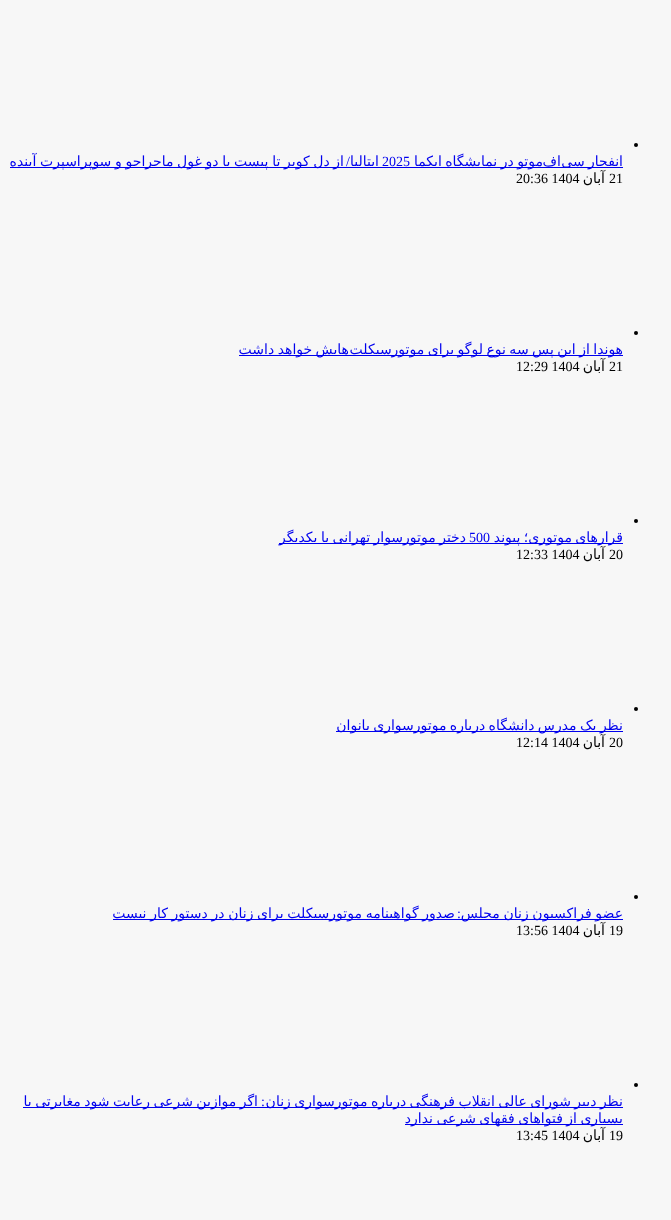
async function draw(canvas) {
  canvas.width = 671
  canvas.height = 1220
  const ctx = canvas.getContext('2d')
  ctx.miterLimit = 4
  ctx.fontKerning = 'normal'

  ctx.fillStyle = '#f7f7f7'
  ctx.fillRect(0, 0, 671, 1220)
  ctx.fillStyle = '#000'
  ctx.beginPath()
  ctx.arc(636, 145, 2, 0, 2 * Math.PI)
  ctx.fill()
  ctx.fillStyle = '#00e'
  ctx.fillRect(10, 167, 613, 1)
  ctx.wordSpacing = '-1px'
  ctx.direction = 'rtl'
  ctx.font = '14px DejaVu Sans'
  ctx.fillText('انفجار سی', 623, 166)
  ctx.wordSpacing = '0px'
  ctx.fillText('اف', 561, 166)
  ctx.wordSpacing = '-1px'
  ctx.fillText('موتو در نمایشگاه ایکما', 543, 166)
  ctx.wordSpacing = '0px'
  ctx.direction = 'ltr'
  ctx.font = '14px Liberation Serif'
  ctx.fillText('2025', 382, 166)
  ctx.direction = 'rtl'
  ctx.font = '14px DejaVu Sans'
  ctx.fillText('ایتالیا', 379, 166)
  ctx.font = '14px Liberation Serif'
  ctx.fillText('/', 350, 166)
  ctx.wordSpacing = '-0.75px'
  ctx.font = '14px DejaVu Sans'
  ctx.fillText('از دل کویر تا پیست با دو غول ماجراجو و سوپراسپرت آینده', 344, 166)
  ctx.wordSpacing = '0px'
  ctx.direction = 'ltr'
  ctx.font = '14px Liberation Serif'
  ctx.fillStyle = '#000'
  ctx.fillText('21', 609, 183)
  ctx.direction = 'rtl'
  ctx.font = '14px DejaVu Sans'
  ctx.fillText('آبان', 605, 183)
  ctx.direction = 'ltr'
  ctx.font = '14px Liberation Serif'
  ctx.fillText('20:36 1404', 516, 183)
  ctx.beginPath()
  ctx.arc(636, 333, 2, 0, 2 * Math.PI)
  ctx.fill()
  ctx.fillStyle = '#00e'
  ctx.fillRect(239, 355, 384, 1)
  ctx.wordSpacing = '-1px'
  ctx.direction = 'rtl'
  ctx.font = '14px DejaVu Sans'
  ctx.fillText('هوندا از این پس سه نوع لوگو برای موتورسیکلت', 623, 354)
  ctx.fillText('هایش خواهد داشت', 349, 354)
  ctx.wordSpacing = '0px'
  ctx.direction = 'ltr'
  ctx.font = '14px Liberation Serif'
  ctx.fillStyle = '#000'
  ctx.fillText('21', 609, 371)
  ctx.direction = 'rtl'
  ctx.font = '14px DejaVu Sans'
  ctx.fillText('آبان', 605, 371)
  ctx.direction = 'ltr'
  ctx.font = '14px Liberation Serif'
  ctx.fillText('12:29 1404', 516, 371)
  ctx.beginPath()
  ctx.arc(636, 521, 2, 0, 2 * Math.PI)
  ctx.fill()
  ctx.fillStyle = '#00e'
  ctx.fillRect(279, 543, 344, 1)
  ctx.wordSpacing = '-1px'
  ctx.direction = 'rtl'
  ctx.font = '14px DejaVu Sans'
  ctx.fillText('قرارهای موتوری؛ پیوند', 623, 542)
  ctx.wordSpacing = '0px'
  ctx.direction = 'ltr'
  ctx.font = '14px Liberation Serif'
  ctx.fillText('500', 469, 542)
  ctx.wordSpacing = '-1px'
  ctx.direction = 'rtl'
  ctx.font = '14px DejaVu Sans'
  ctx.fillText('دختر موتورسوار تهرانی با یکدیگر', 466, 542)
  ctx.wordSpacing = '0px'
  ctx.direction = 'ltr'
  ctx.font = '14px Liberation Serif'
  ctx.fillStyle = '#000'
  ctx.fillText('20', 609, 559)
  ctx.direction = 'rtl'
  ctx.font = '14px DejaVu Sans'
  ctx.fillText('آبان', 605, 559)
  ctx.direction = 'ltr'
  ctx.font = '14px Liberation Serif'
  ctx.fillText('12:33 1404', 516, 559)
  ctx.beginPath()
  ctx.arc(636, 709, 2, 0, 2 * Math.PI)
  ctx.fill()
  ctx.fillStyle = '#00e'
  ctx.fillRect(336, 731, 287, 1)
  ctx.wordSpacing = '-1px'
  ctx.direction = 'rtl'
  ctx.font = '14px DejaVu Sans'
  ctx.fillText('نظر یک مدرس دانشگاه درباره موتورسواری بانوان', 623, 730)
  ctx.wordSpacing = '0px'
  ctx.direction = 'ltr'
  ctx.font = '14px Liberation Serif'
  ctx.fillStyle = '#000'
  ctx.fillText('20', 609, 747)
  ctx.direction = 'rtl'
  ctx.font = '14px DejaVu Sans'
  ctx.fillText('آبان', 605, 747)
  ctx.direction = 'ltr'
  ctx.font = '14px Liberation Serif'
  ctx.fillText('12:14 1404', 516, 747)
  ctx.beginPath()
  ctx.arc(636, 897, 2, 0, 2 * Math.PI)
  ctx.fill()
  ctx.fillStyle = '#00e'
  ctx.fillRect(113, 919, 510, 1)
  ctx.wordSpacing = '-0.75px'
  ctx.direction = 'rtl'
  ctx.font = '14px DejaVu Sans'
  ctx.fillText('عضو فراکسیون زنان مجلس', 623, 918)
  ctx.wordSpacing = '0px'
  ctx.font = '14px Liberation Serif'
  ctx.fillText(':', 461, 918)
  ctx.wordSpacing = '-0.75px'
  ctx.font = '14px DejaVu Sans'
  ctx.fillText('صدور گواهینامه موتورسیکلت برای زنان در دستور کار نیست', 455, 918)
  ctx.wordSpacing = '0px'
  ctx.direction = 'ltr'
  ctx.font = '14px Liberation Serif'
  ctx.fillStyle = '#000'
  ctx.fillText('19', 609, 935)
  ctx.direction = 'rtl'
  ctx.font = '14px DejaVu Sans'
  ctx.fillText('آبان', 605, 935)
  ctx.direction = 'ltr'
  ctx.font = '14px Liberation Serif'
  ctx.fillText('13:56 1404', 516, 935)
  ctx.beginPath()
  ctx.arc(636, 1085, 2, 0, 2 * Math.PI)
  ctx.fill()
  ctx.fillStyle = '#00e'
  ctx.fillRect(23, 1107, 600, 1)
  ctx.wordSpacing = '-1px'
  ctx.direction = 'rtl'
  ctx.font = '14px DejaVu Sans'
  ctx.fillText('نظر دبیر شورای عالی انقلاب فرهنگی درباره موتورسواری زنان', 623, 1106)
  ctx.wordSpacing = '0px'
  ctx.font = '14px Liberation Serif'
  ctx.fillText(':', 265, 1106)
  ctx.wordSpacing = '-1px'
  ctx.font = '14px DejaVu Sans'
  ctx.fillText('اگر موازین شرعی رعایت شود مغایرتی با', 258, 1106)
  ctx.fillRect(405, 1124, 218, 1)
  ctx.fillText('بسیاری از فتواهای فقهای شرعی ندارد', 623, 1123)
  ctx.wordSpacing = '0px'
  ctx.direction = 'ltr'
  ctx.font = '14px Liberation Serif'
  ctx.fillStyle = '#000'
  ctx.fillText('19', 609, 1140)
  ctx.direction = 'rtl'
  ctx.font = '14px DejaVu Sans'
  ctx.fillText('آبان', 605, 1140)
  ctx.direction = 'ltr'
  ctx.font = '14px Liberation Serif'
  ctx.fillText('13:45 1404', 516, 1140)
}

draw(document.querySelector('canvas'))
